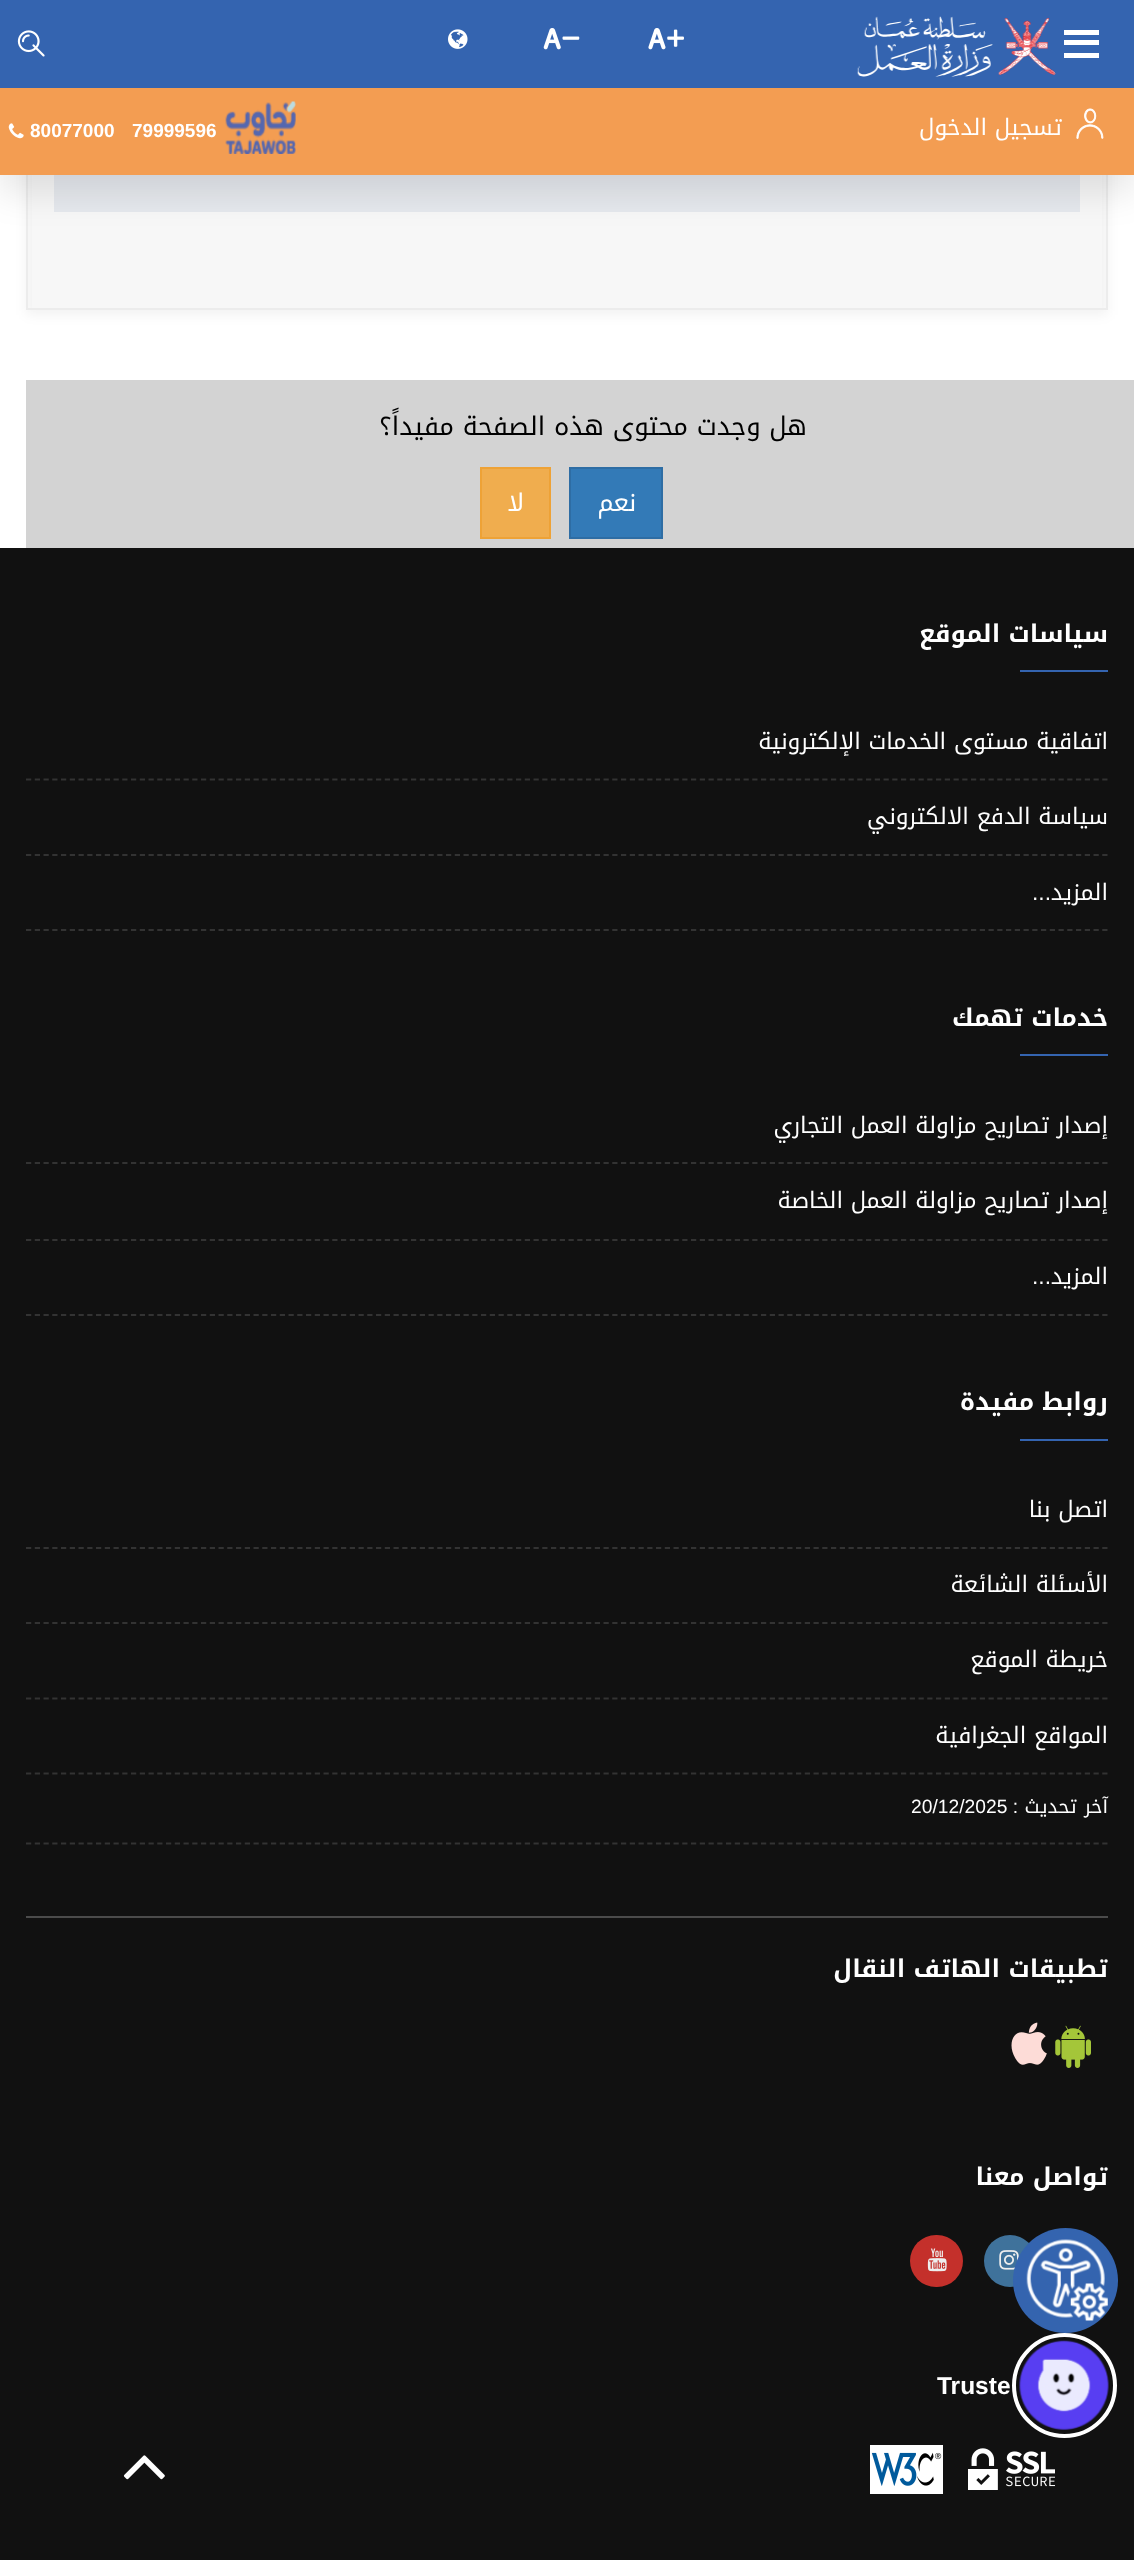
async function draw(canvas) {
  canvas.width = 1134
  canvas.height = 2560
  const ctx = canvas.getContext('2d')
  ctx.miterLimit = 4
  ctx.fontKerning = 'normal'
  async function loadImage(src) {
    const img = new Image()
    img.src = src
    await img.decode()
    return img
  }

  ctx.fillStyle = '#fff'
  ctx.fillRect(0, 0, 1134, 2560)
  ctx.fillStyle = '#0000000d'
  ctx.filter = 'blur(6px)'
  ctx.beginPath()
  ctx.rect(26, -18, 1082, 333)
  ctx.fill()
  ctx.filter = 'none'
  ctx.fillStyle = '#f7f7f7'
  ctx.fillRect(32, 175, 1070, 133)
  ctx.strokeStyle = '#ececec'
  ctx.lineWidth = 2
  ctx.strokeRect(27, -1, 1080, 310)
  ctx.fillStyle = '#e6e9ee'
  ctx.fillRect(54, 175, 1026, 37)
  ctx.fillStyle = '#0000001a'
  ctx.filter = 'blur(17.5px)'
  ctx.beginPath()
  ctx.rect(0, 18, 1134, 175)
  ctx.fill()
  ctx.filter = 'none'
  ctx.fillStyle = '#3464b0'
  ctx.fillRect(0, 0, 1134, 88)
  ctx.fillStyle = '#fff'
  ctx.fillRect(1064, 30, 35, 5)
  ctx.fillRect(1064, 40, 35, 5)
  ctx.fillRect(1064, 53, 35, 5)
  ctx.drawImage(await loadImage('image0.png'), 857, 16, 199, 61)
  ctx.drawImage(await loadImage('image1.png'), 648, 28, 36, 22)
  ctx.drawImage(await loadImage('image2.png'), 543, 28, 37, 22)
  ctx.drawImage(await loadImage('image3.png'), 448, 29, 20, 20)
  ctx.drawImage(await loadImage('image4.png'), 17, 30, 28, 27)
  ctx.fillStyle = '#f39d52'
  ctx.fillRect(0, 88, 1134, 87)
  ctx.drawImage(await loadImage('image5.png'), 1076, 108, 28, 31)
  ctx.direction = 'rtl'
  ctx.font = '22.75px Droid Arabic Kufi'
  ctx.fillStyle = '#fff'
  ctx.fillText('تسجيل الدخول', 1062, 135)
  ctx.drawImage(await loadImage('image6.png'), 225, 101, 71, 53)
  ctx.direction = 'ltr'
  ctx.font = 'bold 19px Liberation Sans'
  ctx.fillText('79999596', 132, 137)
  ctx.fillText('80077000', 30, 137)
  ctx.drawImage(await loadImage('image7.png'), 8, 123, 16, 16)
  ctx.fillStyle = '#d3d3d3'
  ctx.fillRect(26, 380, 1108, 168)
  ctx.direction = 'rtl'
  ctx.font = '25.7px Droid Arabic Kufi'
  ctx.fillStyle = '#000'
  ctx.fillText('هل وجدت محتوى هذه الصفحة مفيداً؟', 807, 435)
  ctx.fillStyle = '#337ab7'
  ctx.beginPath()
  ctx.rect(570, 468, 92, 70)
  ctx.fill()
  ctx.strokeStyle = '#2e6da4'
  ctx.stroke()
  ctx.font = '24.5px Droid Arabic Kufi'
  ctx.fillStyle = '#fff'
  ctx.fillText('نعم', 636, 511)
  ctx.fillStyle = '#f0ad4e'
  ctx.beginPath()
  ctx.rect(481, 468, 69, 70)
  ctx.fill()
  ctx.strokeStyle = '#eea236'
  ctx.stroke()
  ctx.fillStyle = '#fff'
  ctx.fillText('لا', 524, 511)
  ctx.fillStyle = '#111'
  ctx.fillRect(0, 548, 1134, 2012)
  ctx.font = 'bold 24.5px Droid Arabic Kufi'
  ctx.fillStyle = '#fff'
  ctx.fillText('سياسات الموقع', 1108, 642)
  ctx.fillStyle = '#3464b0'
  ctx.fillRect(1020, 670, 88, 2)
  ctx.beginPath()
  ctx.moveTo(26, 779.5)
  ctx.lineTo(1108, 779.5)
  ctx.strokeStyle = '#333'
  ctx.lineWidth = 1.8
  ctx.setLineDash([5.25, 3.5])
  ctx.stroke()
  ctx.font = '22.75px Droid Arabic Kufi'
  ctx.fillStyle = '#fff'
  ctx.fillText('اتفاقية مستوى الخدمات الإلكترونية', 1108, 749)
  ctx.beginPath()
  ctx.moveTo(26, 855)
  ctx.lineTo(1108, 855)
  ctx.stroke()
  ctx.fillText('سياسة الدفع الالكتروني', 1108, 824)
  ctx.beginPath()
  ctx.moveTo(26, 930)
  ctx.lineTo(1108, 930)
  ctx.stroke()
  ctx.fillText('المزيد', 1108, 900)
  ctx.font = '22.75px Liberation Sans'
  ctx.fillText('...', 1051, 900)
  ctx.font = 'bold 24.5px Droid Arabic Kufi'
  ctx.fillText('خدمات تهمك', 1108, 1026)
  ctx.fillStyle = '#3464b0'
  ctx.fillRect(1020, 1054, 88, 2)
  ctx.beginPath()
  ctx.moveTo(26, 1163)
  ctx.lineTo(1108, 1163)
  ctx.stroke()
  ctx.font = '22.75px Droid Arabic Kufi'
  ctx.fillStyle = '#fff'
  ctx.fillText('إصدار تصاريح مزاولة العمل التجاري', 1108, 1133)
  ctx.beginPath()
  ctx.moveTo(26, 1240)
  ctx.lineTo(1108, 1240)
  ctx.stroke()
  ctx.fillText('إصدار تصاريح مزاولة العمل الخاصة', 1108, 1208)
  ctx.beginPath()
  ctx.moveTo(26, 1315)
  ctx.lineTo(1108, 1315)
  ctx.stroke()
  ctx.fillText('المزيد', 1108, 1284)
  ctx.font = '22.75px Liberation Sans'
  ctx.fillText('...', 1051, 1284)
  ctx.font = 'bold 24.5px Droid Arabic Kufi'
  ctx.fillText('روابط مفيدة', 1108, 1410)
  ctx.fillStyle = '#3464b0'
  ctx.fillRect(1020, 1439, 88, 2)
  ctx.beginPath()
  ctx.moveTo(26, 1548)
  ctx.lineTo(1108, 1548)
  ctx.stroke()
  ctx.font = '22.75px Droid Arabic Kufi'
  ctx.fillStyle = '#fff'
  ctx.fillText('اتصل بنا', 1108, 1517)
  ctx.beginPath()
  ctx.moveTo(26, 1623)
  ctx.lineTo(1108, 1623)
  ctx.stroke()
  ctx.fillText('الأسئلة الشائعة', 1108, 1592)
  ctx.beginPath()
  ctx.moveTo(26, 1698.5)
  ctx.lineTo(1108, 1698.5)
  ctx.stroke()
  ctx.fillText('خريطة الموقع', 1108, 1667)
  ctx.beginPath()
  ctx.moveTo(26, 1773.5)
  ctx.lineTo(1108, 1773.5)
  ctx.stroke()
  ctx.fillText('المواقع الجغرافية', 1108, 1743)
  ctx.beginPath()
  ctx.moveTo(26, 1843.5)
  ctx.lineTo(1108, 1843.5)
  ctx.stroke()
  ctx.wordSpacing = '1px'
  ctx.font = '19.25px Droid Arabic Kufi'
  ctx.fillText('آخر تحديث', 1108, 1813)
  ctx.wordSpacing = '0px'
  ctx.font = '19.25px Liberation Sans'
  ctx.fillText(':', 1018, 1813)
  ctx.direction = 'ltr'
  ctx.fillText('20/12/2025', 911, 1813)
  ctx.fillStyle = '#4b4b4b'
  ctx.fillRect(26, 1916, 1082, 2)
  ctx.direction = 'rtl'
  ctx.font = 'bold 24.5px Droid Arabic Kufi'
  ctx.fillStyle = '#fff'
  ctx.fillText('تطبيقات الهاتف النقال', 1108, 1977)
  ctx.drawImage(await loadImage('image8.png'), 1055, 2025, 36, 43)
  ctx.drawImage(await loadImage('image9.png'), 1011, 2022, 36, 43)
  ctx.fillText('تواصل معنا', 1108, 2185)
  ctx.fillStyle = '#3f729b'
  ctx.beginPath()
  ctx.arc(1010, 2261, 26, 0, 2 * Math.PI)
  ctx.fill()
  ctx.drawImage(await loadImage('image10.png'), 999, 2250, 20, 20)
  ctx.fillStyle = '#c4302b'
  ctx.beginPath()
  ctx.roundRect(910, 2235, 53, 52, 26)
  ctx.fill()
  ctx.drawImage(await loadImage('image11.png'), 927, 2248, 20, 24)
  ctx.wordSpacing = '2px'
  ctx.direction = 'ltr'
  ctx.font = 'bold 24.5px Liberation Sans'
  ctx.fillStyle = '#fff'
  ctx.fillText('Truste', 937, 2394)
  ctx.drawImage(await loadImage('image12.png'), 968, 2448, 87, 42)
  ctx.drawImage(await loadImage('image13.png'), 870, 2445, 73, 49)
  ctx.fillStyle = '#3464af'
  ctx.beginPath()
  ctx.arc(1065.5, 2280.5, 52.5, 0, 2 * Math.PI)
  ctx.fill()
  ctx.drawImage(await loadImage('image14.png'), 1026, 2239, 82, 82)
  ctx.beginPath()
  ctx.arc(1064.5, 2385.5, 50.5, 0, 2 * Math.PI)
  ctx.strokeStyle = '#fff'
  ctx.lineWidth = 4
  ctx.setLineDash([])
  ctx.stroke()
  ctx.drawImage(await loadImage('image15.png'), 1019, 2340, 90, 90)
  ctx.drawImage(await loadImage('image16.png'), 123, 2455, 42, 25)
}

draw(document.querySelector('canvas'))
